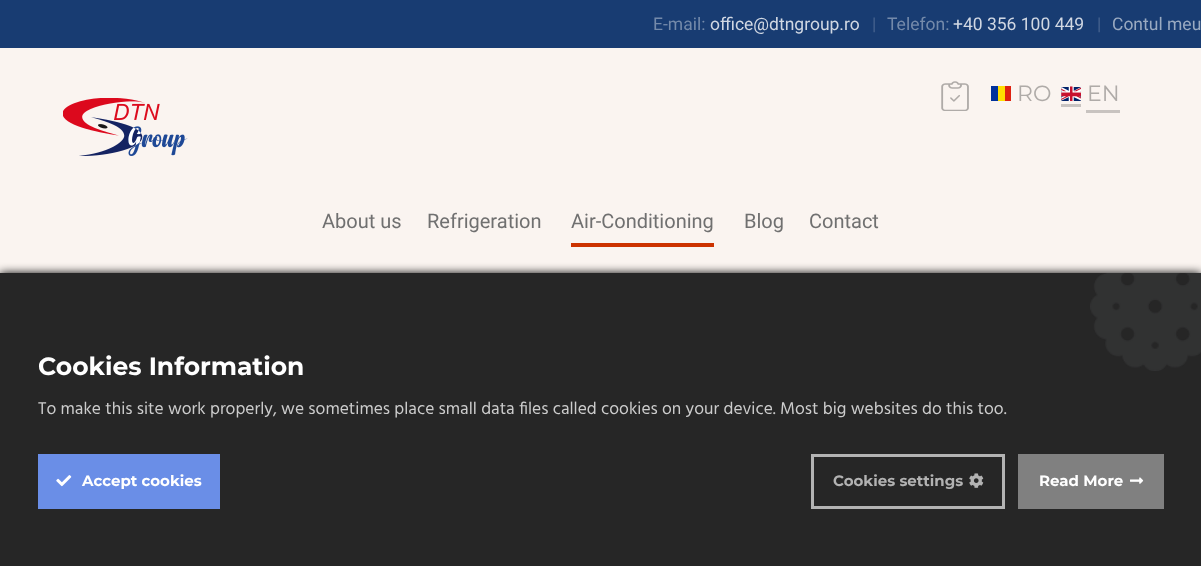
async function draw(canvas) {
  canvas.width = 1201
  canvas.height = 566
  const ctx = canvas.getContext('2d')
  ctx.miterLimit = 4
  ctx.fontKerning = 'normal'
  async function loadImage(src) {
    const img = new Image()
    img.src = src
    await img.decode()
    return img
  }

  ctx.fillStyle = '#faf4f0'
  ctx.fillRect(0, 0, 1201, 566)
  ctx.fillStyle = '#183c72'
  ctx.fillRect(0, 0, 1201, 48)
  ctx.font = '17.5px Roboto'
  ctx.fillStyle = '#748aaa'
  ctx.fillText('E-mail:', 653, 30)
  ctx.fillStyle = '#d1d8e3'
  ctx.fillText('office@dtngroup.ro', 710, 30)
  ctx.fillStyle = '#46638e'
  ctx.fillText('|', 872, 30)
  ctx.fillStyle = '#748aaa'
  ctx.fillText('Telefon:', 887, 30)
  ctx.fillStyle = '#d1d8e3'
  ctx.fillText('+40 356 100 449', 953, 30)
  ctx.fillStyle = '#46638e'
  ctx.fillText('|', 1097, 30)
  ctx.fillStyle = '#9aaac1'
  ctx.fillText('Contul meu', 1112, 30)
  ctx.drawImage(await loadImage('image0.png'), 941, 81, 28, 30)
  ctx.fillStyle = '#00319c'
  ctx.fillRect(991, 86, 7, 15)
  ctx.fillStyle = '#ffde00'
  ctx.fillRect(998, 86, 7, 15)
  ctx.fillStyle = '#de2110'
  ctx.fillRect(1005, 86, 6, 15)
  ctx.font = '22px Montserrat'
  ctx.fillStyle = '#afaba8'
  ctx.fillText('RO', 1017, 101)
  ctx.fillStyle = '#c8c3c0'
  ctx.fillRect(1061, 104, 20, 3)
  ctx.fillRect(1086, 110, 34, 3)
  ctx.drawImage(await loadImage('image1.png'), 1061, 86, 20, 15)
  ctx.fillStyle = '#afaba8'
  ctx.fillText('EN', 1087, 101)
  ctx.drawImage(await loadImage('image2.png'), 63, 98, 125, 58)
  ctx.font = '20px Roboto'
  ctx.fillStyle = '#707070'
  ctx.fillText('About us', 322, 228)
  ctx.fillText('Refrigeration', 427, 228)
  ctx.fillText('Air-Conditioning', 571, 228)
  ctx.fillStyle = '#c30'
  ctx.fillRect(571, 243, 143, 4)
  ctx.fillStyle = '#707070'
  ctx.fillText('Blog', 744, 228)
  ctx.fillText('Contact', 809, 228)
  ctx.fillStyle = '#000'
  ctx.filter = 'blur(5px)'
  ctx.beginPath()
  ctx.rect(0, 273, 1201, 293)
  ctx.fill()
  ctx.filter = 'none'
  ctx.fillStyle = '#262626'
  ctx.fillRect(0, 273, 1201, 293)
  ctx.font = 'bold 25px Montserrat'
  ctx.fillStyle = '#fff'
  ctx.fillText('Cookies Information', 38, 375)
  ctx.drawImage(await loadImage('image3.png'), 1090, 272, 111, 99)
  ctx.font = '17.5px Hind'
  ctx.fillStyle = '#ccc'
  ctx.fillText('To make this site work properly, we sometimes place small data files called cookies on your device. Most big websites do this too.', 38, 414)
  ctx.fillStyle = '#6a8ee7'
  ctx.fillRect(38, 454, 182, 55)
  ctx.drawImage(await loadImage('image4.png'), 56, 475, 16, 12)
  ctx.font = 'bold 15px Montserrat'
  ctx.fillStyle = '#fff'
  ctx.fillText('Accept cookies', 82, 486)
  ctx.strokeStyle = '#b3b3b3'
  ctx.lineWidth = 3
  ctx.strokeRect(812.5, 455.5, 191, 52)
  ctx.fillStyle = '#b2b2b2'
  ctx.fillText('Cookies settings', 833, 486)
  ctx.drawImage(await loadImage('image5.png'), 969, 473, 15, 15)
  ctx.fillStyle = '#808080'
  ctx.fillRect(1018, 454, 146, 55)
  ctx.fillStyle = '#fff'
  ctx.fillText('Read More', 1039, 486)
  ctx.drawImage(await loadImage('image6.png'), 1130, 477, 14, 7)
}

draw(document.querySelector('canvas'))
